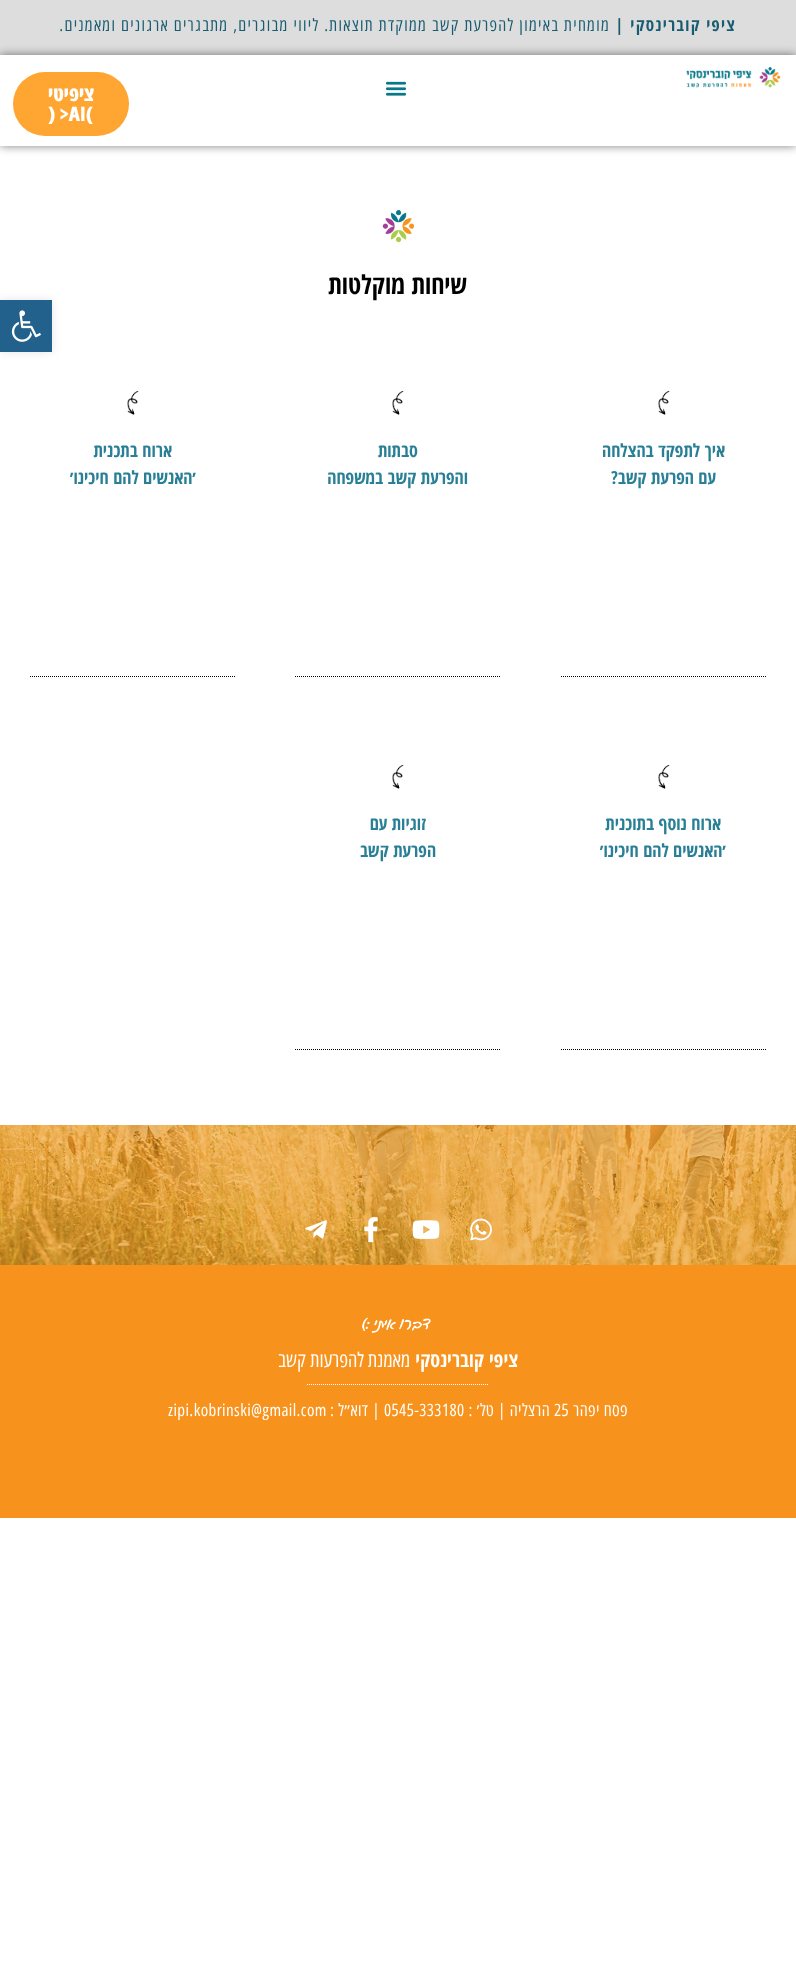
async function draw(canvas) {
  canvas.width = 796
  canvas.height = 1982
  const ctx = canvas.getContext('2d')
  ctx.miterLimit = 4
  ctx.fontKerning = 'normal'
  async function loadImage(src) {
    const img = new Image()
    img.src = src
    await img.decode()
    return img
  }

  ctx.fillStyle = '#fff'
  ctx.fillRect(0, 0, 796, 1982)
  ctx.fillStyle = '#ddd'
  ctx.fillRect(0, 0, 796, 55)
  ctx.letterSpacing = '1.3px'
  ctx.direction = 'rtl'
  ctx.font = 'bold 17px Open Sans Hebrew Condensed'
  ctx.fillStyle = '#185c72'
  ctx.fillText('ציפי קוברינסקי |', 736, 31)
  ctx.font = '17px Open Sans Hebrew Condensed'
  ctx.fillText('מומחית באימון להפרעת קשב ממוקדת תוצאות. ליווי מבוגרים, מתבגרים ארגונים ומאמנים.', 610, 31)
  ctx.save()
  ctx.beginPath()
  ctx.moveTo(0, 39)
  ctx.lineTo(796, 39)
  ctx.lineTo(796, 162)
  ctx.lineTo(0, 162)
  ctx.closePath()
  ctx.moveTo(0, 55)
  ctx.lineTo(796, 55)
  ctx.lineTo(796, 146)
  ctx.lineTo(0, 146)
  ctx.closePath()
  ctx.clip('evenodd')
  ctx.fillStyle = '#00000080'
  ctx.filter = 'blur(5px)'
  ctx.beginPath()
  ctx.rect(0, 55, 796, 91)
  ctx.fill()
  ctx.filter = 'none'
  ctx.restore()
  ctx.drawImage(await loadImage('image0.png'), 686, 67, 95, 21)
  ctx.drawImage(await loadImage('image1.png'), 385, 81, 22, 15)
  ctx.fillStyle = '#ffa531'
  ctx.beginPath()
  ctx.roundRect(13, 72, 116, 64, 32)
  ctx.fill()
  ctx.letterSpacing = '0px'
  ctx.font = '800 20px Open Sans Hebrew Condensed'
  ctx.fillStyle = '#fff'
  ctx.fillText('ציפיטי', 94, 101)
  ctx.direction = 'ltr'
  ctx.fillText(') >AI(', 48, 121)
  ctx.drawImage(await loadImage('image2.png'), 382, 209, 33, 34)
  ctx.direction = 'rtl'
  ctx.font = 'bold 26px Open Sans Hebrew Condensed'
  ctx.fillStyle = '#000'
  ctx.fillText('שיחות מוקלטות', 467, 294)
  ctx.drawImage(await loadImage('image3.png'), 658, 391, 12, 24)
  ctx.font = 'bold 18px Open Sans Hebrew Condensed'
  ctx.fillStyle = '#298096'
  ctx.fillText('איך לתפקד בהצלחה', 725, 457)
  ctx.fillText('עם הפרעת קשב?', 716, 484)
  ctx.beginPath()
  ctx.moveTo(561, 676.5)
  ctx.lineTo(766, 676.5)
  ctx.strokeStyle = '#000'
  ctx.setLineDash([1, 1])
  ctx.stroke()
  ctx.drawImage(await loadImage('image3.png'), 392, 391, 12, 24)
  ctx.fillText('סבתות', 418, 457)
  ctx.fillText('והפרעת קשב במשפחה', 468, 484)
  ctx.beginPath()
  ctx.moveTo(295, 676.5)
  ctx.lineTo(501, 676.5)
  ctx.stroke()
  ctx.drawImage(await loadImage('image3.png'), 127, 391, 12, 24)
  ctx.fillText('ארוח בתכנית', 172, 457)
  ctx.fillText('׳האנשים להם חיכינו׳', 196, 484)
  ctx.beginPath()
  ctx.moveTo(30, 676.5)
  ctx.lineTo(235, 676.5)
  ctx.stroke()
  ctx.drawImage(await loadImage('image3.png'), 658, 765, 12, 24)
  ctx.fillText('ארוח נוסף בתוכנית', 721, 830)
  ctx.fillText('׳האנשים להם חיכינו׳', 726, 857)
  ctx.beginPath()
  ctx.moveTo(561, 1049.5)
  ctx.lineTo(766, 1049.5)
  ctx.stroke()
  ctx.drawImage(await loadImage('image3.png'), 392, 765, 12, 24)
  ctx.fillText('זוגיות עם', 426, 830)
  ctx.fillText('הפרעת קשב', 436, 857)
  ctx.beginPath()
  ctx.moveTo(295, 1049.5)
  ctx.lineTo(501, 1049.5)
  ctx.stroke()
  ctx.fillStyle = '#0000001a'
  ctx.filter = 'blur(5px)'
  ctx.beginPath()
  ctx.rect(0, 300, 52, 52)
  ctx.fill()
  ctx.filter = 'none'
  ctx.fillStyle = '#21618c'
  ctx.fillRect(0, 300, 52, 52)
  ctx.drawImage(await loadImage('image4.png'), 11, 310, 30, 32)
  ctx.drawImage(await loadImage('image5.png'), 0, 1125, 796, 140)
  ctx.drawImage(await loadImage('image6.png'), 470, 1218, 22, 23)
  ctx.drawImage(await loadImage('image7.png'), 412, 1220, 28, 19)
  ctx.drawImage(await loadImage('image8.png'), 364, 1217, 14, 26)
  ctx.drawImage(await loadImage('image9.png'), 305, 1220, 22, 19)
  ctx.fillStyle = '#f7931d'
  ctx.fillRect(0, 1265, 796, 253)
  ctx.drawImage(await loadImage('image10.png'), 362, 1317, 69, 16)
  ctx.font = 'bold 20px Open Sans Hebrew Condensed'
  ctx.fillStyle = '#fff'
  ctx.fillText('ציפי קוברינסקי', 518, 1367)
  ctx.font = '20px Open Sans Hebrew Condensed'
  ctx.fillText('מאמנת להפרעות קשב', 410, 1367)
  ctx.beginPath()
  ctx.moveTo(307, 1384.5)
  ctx.lineTo(489, 1384.5)
  ctx.strokeStyle = '#fffdfd'
  ctx.stroke()
  ctx.letterSpacing = '0.4px'
  ctx.font = '17px Open Sans Hebrew Condensed'
  ctx.fillText('פסח יפהר', 628, 1416)
  ctx.direction = 'ltr'
  ctx.fillText('25', 554, 1416)
  ctx.direction = 'rtl'
  ctx.fillText('הרצליה | טל׳ :', 550, 1416)
  ctx.direction = 'ltr'
  ctx.fillText('0545-333180', 384, 1416)
  ctx.direction = 'rtl'
  ctx.fillText('| דוא״ל :', 380, 1416)
  ctx.direction = 'ltr'
  ctx.fillText('zipi.kobrinski@gmail.com', 168, 1416)
}

draw(document.querySelector('canvas'))
